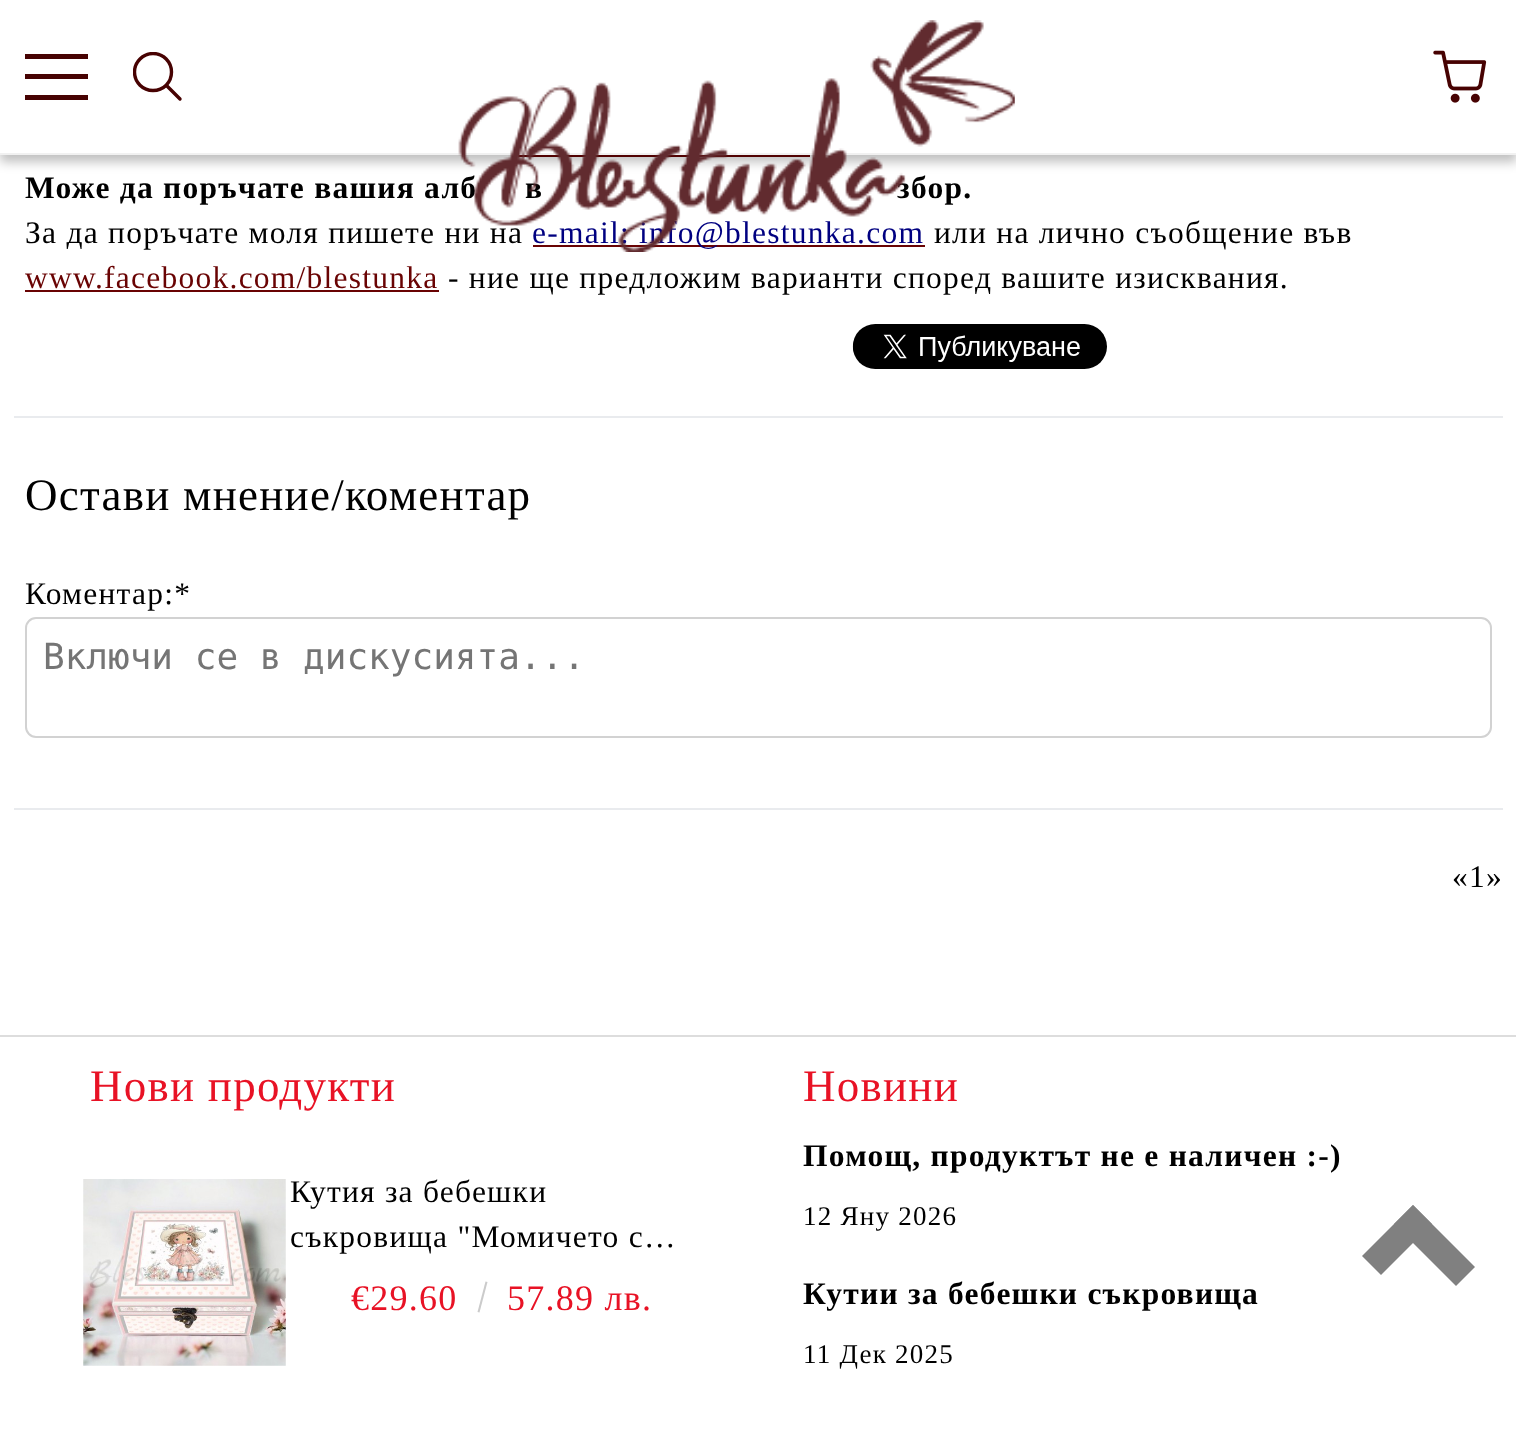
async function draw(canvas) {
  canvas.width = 1516
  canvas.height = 1437
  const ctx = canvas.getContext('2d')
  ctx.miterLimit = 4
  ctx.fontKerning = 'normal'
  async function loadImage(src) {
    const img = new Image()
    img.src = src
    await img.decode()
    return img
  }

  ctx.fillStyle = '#fff'
  ctx.fillRect(0, 0, 1516, 1437)
  ctx.fillStyle = '#690303'
  ctx.fillRect(518, 155, 292, 2)
  ctx.fillStyle = '#00000040'
  ctx.filter = 'blur(5.5px)'
  ctx.beginPath()
  ctx.rect(0, 7, 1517, 155)
  ctx.fill()
  ctx.filter = 'none'
  ctx.fillStyle = '#f1f1f1'
  ctx.fillRect(0, 153, 1516, 2)
  ctx.fillStyle = '#fff'
  ctx.fillRect(0, 0, 1516, 153)
  ctx.fillStyle = '#470202'
  ctx.fillRect(25, 54, 63, 5)
  ctx.fillRect(25, 74, 63, 5)
  ctx.fillRect(25, 95, 63, 5)
  ctx.save()
  ctx.beginPath()
  ctx.rect(133, 52, 49, 49)
  ctx.clip()
  ctx.beginPath()
  ctx.moveTo(153, 53.5)
  ctx.bezierCurveTo(143, 53.5, 134.5, 62, 134.5, 72)
  ctx.bezierCurveTo(134.5, 82.5, 143, 90.5, 153, 90.5)
  ctx.bezierCurveTo(163.5, 90.5, 171.5, 82.5, 171.5, 72)
  ctx.bezierCurveTo(171.5, 62, 163.5, 53.5, 153, 53.5)
  ctx.closePath()
  ctx.strokeStyle = '#470202'
  ctx.lineWidth = 3.4
  ctx.stroke()
  ctx.restore()
  ctx.beginPath()
  ctx.moveTo(167, 86)
  ctx.lineTo(180, 99)
  ctx.strokeStyle = '#470202'
  ctx.lineWidth = 3.4
  ctx.lineCap = 'round'
  ctx.stroke()
  ctx.letterSpacing = '1.25px'
  ctx.font = 'bold 31.5px Liberation Serif'
  ctx.fillStyle = '#000'
  ctx.fillText('Може да поръчате вашия алб', 25, 198)
  ctx.fillText('в', 525, 198)
  ctx.fillText('збор.', 897, 198)
  ctx.font = '31.5px Liberation Serif'
  ctx.fillText('За да поръчате моля пишете ни на', 25, 243)
  ctx.fillStyle = '#690303'
  ctx.fillRect(533, 245, 392, 2)
  ctx.fillStyle = '#000080'
  ctx.fillText('e-mail: info@blestunka.com', 532, 243)
  ctx.fillStyle = '#000'
  ctx.fillText('или на лично съобщение във', 934, 243)
  ctx.drawImage(await loadImage('image0.png'), 458, 20, 557, 232)
  ctx.drawImage(await loadImage('image1.png'), 1433, 50, 54, 53)
  ctx.fillStyle = '#690303'
  ctx.fillText('www.facebook.com/blestunka', 25, 288)
  ctx.fillStyle = '#000'
  ctx.fillText('- ние ще предложим варианти според вашите изисквания.', 448, 288)
  ctx.fillStyle = '#690303'
  ctx.fillRect(25, 290, 414, 2)
  ctx.drawImage(await loadImage('image2.png'), 852, 324, 255, 45)
  ctx.fillStyle = '#e9ebee'
  ctx.fillRect(14, 416, 1489, 2)
  ctx.font = '45px Liberation Serif'
  ctx.fillStyle = '#000'
  ctx.fillText('Остави мнение/коментар', 25, 510)
  ctx.font = '31.5px Liberation Serif'
  ctx.fillText('Коментар:*', 25, 604)
  ctx.beginPath()
  ctx.roundRect(26, 618, 1465, 119, 10)
  ctx.strokeStyle = '#d2d2d2'
  ctx.lineWidth = 2
  ctx.stroke()
  ctx.letterSpacing = '0px'
  ctx.font = '36px DejaVu Sans Mono'
  ctx.fillStyle = '#757575'
  ctx.fillText('Включи се в дискусията...', 43, 669)
  ctx.fillStyle = '#e9ebee'
  ctx.fillRect(14, 808, 1489, 2)
  ctx.letterSpacing = '1.25px'
  ctx.font = '31.5px Liberation Serif'
  ctx.fillStyle = '#000'
  ctx.fillText('«1»', 1452, 887)
  ctx.fillStyle = '#ddd'
  ctx.fillRect(0, 1035, 1516, 2)
  ctx.font = '45px Liberation Serif'
  ctx.fillStyle = '#e81225'
  ctx.fillText('Нови продукти', 90, 1101)
  ctx.drawImage(await loadImage('image3.png'), 83, 1179, 203, 187)
  ctx.font = '31.5px Liberation Serif'
  ctx.fillStyle = '#000'
  ctx.fillText('Кутия за бебешки', 290, 1202)
  ctx.fillText('съкровища "Момичето с…', 290, 1247)
  ctx.font = '36px Liberation Serif'
  ctx.fillStyle = '#e81225'
  ctx.fillText('€29.60', 351, 1310)
  ctx.fillStyle = '#cbcbcb'
  ctx.beginPath()
  ctx.moveTo(485.5, 1281.5)
  ctx.lineTo(487.5, 1282)
  ctx.lineTo(479.5, 1312.5)
  ctx.lineTo(477.5, 1312)
  ctx.closePath()
  ctx.fill()
  ctx.fillStyle = '#e81225'
  ctx.fillText('57.89 лв.', 507, 1310)
  ctx.font = '45px Liberation Serif'
  ctx.fillText('Новини', 803, 1101)
  ctx.font = 'bold 31.5px Liberation Serif'
  ctx.fillStyle = '#000'
  ctx.fillText('Помощ, продуктът не е наличен :-)', 803, 1166)
  ctx.font = '27px Liberation Serif'
  ctx.fillText('12 Яну 2026', 803, 1225)
  ctx.font = 'bold 31.5px Liberation Serif'
  ctx.fillText('Кутии за бебешки съкровища', 803, 1304)
  ctx.font = '27px Liberation Serif'
  ctx.fillText('11 Дек 2025', 803, 1363)
  ctx.fillStyle = '#808080'
  ctx.beginPath()
  ctx.moveTo(1381, 1275)
  ctx.lineTo(1362, 1256)
  ctx.lineTo(1413, 1205)
  ctx.lineTo(1432, 1224)
  ctx.closePath()
  ctx.fill()
  ctx.beginPath()
  ctx.moveTo(1456, 1286)
  ctx.lineTo(1394, 1224)
  ctx.lineTo(1413, 1205)
  ctx.lineTo(1475, 1267)
  ctx.closePath()
  ctx.fill()
}

draw(document.querySelector('canvas'))
